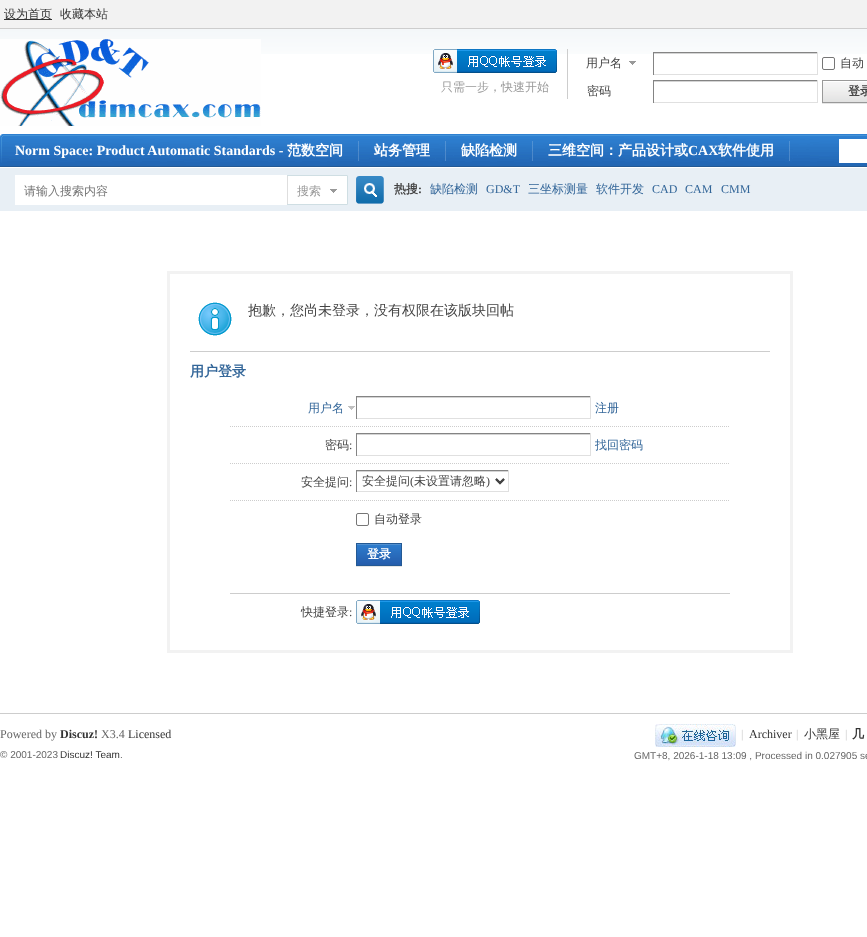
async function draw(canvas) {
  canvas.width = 867
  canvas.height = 937
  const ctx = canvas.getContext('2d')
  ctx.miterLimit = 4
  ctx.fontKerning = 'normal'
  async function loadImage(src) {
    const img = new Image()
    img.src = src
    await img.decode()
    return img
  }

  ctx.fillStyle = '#fff'
  ctx.fillRect(0, 0, 867, 937)
  ctx.drawImage(await loadImage('image0.png'), 0, 29, 867, 25)
  ctx.fillStyle = '#f2f2f2'
  ctx.fillRect(0, 0, 867, 28)
  ctx.fillStyle = '#cdcdcd'
  ctx.fillRect(0, 28, 867, 1)
  ctx.fillStyle = '#333'
  ctx.fillRect(4, 19, 48, 1)
  ctx.font = '500 12px WenQuanYi Zen Hei'
  ctx.fillText('设为首页', 4, 18)
  ctx.fillText('收藏本站', 60, 18)
  ctx.drawImage(await loadImage('image1.png'), 0, 39, 261, 87)
  ctx.fillStyle = '#cdcdcd'
  ctx.fillRect(567, 49, 1, 50)
  ctx.drawImage(await loadImage('image2.png'), 433, 49, 124, 24)
  ctx.fillStyle = '#999'
  ctx.fillText('只需一步，快速开始', 441, 91)
  ctx.drawImage(await loadImage('image3.png'), 629, 61, 7, 4)
  ctx.fillStyle = '#444'
  ctx.fillText('用户名', 586, 67)
  ctx.fillStyle = '#d4d4d4'
  ctx.fillRect(653, 53, 165, 1)
  ctx.fillStyle = '#848484'
  ctx.fillRect(653, 52, 165, 1)
  ctx.fillStyle = '#e0e0e0'
  ctx.fillRect(817, 52, 1, 23)
  ctx.fillRect(653, 74, 165, 1)
  ctx.fillStyle = '#848484'
  ctx.fillRect(653, 52, 1, 23)
  ctx.beginPath()
  ctx.roundRect(822.5, 57.5, 12, 12, 1.5)
  ctx.strokeStyle = '#767676'
  ctx.stroke()
  ctx.fillStyle = '#444'
  ctx.fillText('自动', 840, 67)
  ctx.fillText('密码', 587, 95)
  ctx.fillStyle = '#d4d4d4'
  ctx.fillRect(653, 81, 165, 1)
  ctx.fillStyle = '#848484'
  ctx.fillRect(653, 80, 165, 1)
  ctx.fillStyle = '#e0e0e0'
  ctx.fillRect(817, 80, 1, 23)
  ctx.fillRect(653, 102, 165, 1)
  ctx.fillStyle = '#848484'
  ctx.fillRect(653, 80, 1, 23)
  ctx.fillStyle = '#e5e5e5'
  ctx.fillRect(822, 103, 45, 1)
  ctx.drawImage(await loadImage('image4.png'), 823, 81, 44, 21)
  ctx.strokeStyle = '#999'
  ctx.strokeRect(822.5, 80.5, 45, 22)
  ctx.font = 'bold 12px WenQuanYi Zen Hei'
  ctx.fillStyle = '#444'
  ctx.fillText('登录', 848, 95)
  ctx.drawImage(await loadImage('image5.png'), 0, 134, 867, 33)
  ctx.drawImage(await loadImage('image6.png'), 358, 141, 1, 20)
  ctx.font = 'bold 14px Liberation Serif'
  ctx.fillStyle = '#fff'
  ctx.fillText('Norm Space: Product Automatic Standards -', 15, 155)
  ctx.font = 'bold 14px WenQuanYi Zen Hei'
  ctx.fillText('范数空间', 287, 155)
  ctx.drawImage(await loadImage('image6.png'), 445, 141, 1, 20)
  ctx.fillText('站务管理', 374, 155)
  ctx.drawImage(await loadImage('image6.png'), 532, 141, 1, 20)
  ctx.fillText('缺陷检测', 461, 155)
  ctx.drawImage(await loadImage('image6.png'), 789, 141, 1, 20)
  ctx.fillText('三维空间：产品设计或', 548, 155)
  ctx.font = 'bold 14px Liberation Serif'
  ctx.fillText('CAX', 688, 155)
  ctx.font = 'bold 14px WenQuanYi Zen Hei'
  ctx.fillText('软件使用', 718, 155)
  ctx.fillRect(839, 139, 28, 24)
  ctx.fillStyle = '#e8eff5'
  ctx.fillRect(0, 168, 867, 43)
  ctx.fillStyle = '#fff'
  ctx.fillRect(15, 175, 272, 30)
  ctx.drawImage(await loadImage('image7.png'), 356, 176, 28, 28)
  ctx.font = 'bold 12px WenQuanYi Zen Hei'
  ctx.fillStyle = '#444'
  ctx.fillText('热搜', 394, 193)
  ctx.font = 'bold 12px Liberation Serif'
  ctx.fillText(':', 418, 193)
  ctx.font = '500 12px WenQuanYi Zen Hei'
  ctx.fillStyle = '#369'
  ctx.fillText('缺陷检测', 430, 193)
  ctx.font = '12px Liberation Serif'
  ctx.fillText('GD&T', 486, 193)
  ctx.font = '500 12px WenQuanYi Zen Hei'
  ctx.fillText('三坐标测量', 528, 193)
  ctx.fillText('软件开发', 596, 193)
  ctx.font = '12px Liberation Serif'
  ctx.fillText('CAD', 652, 193)
  ctx.fillText('CAM', 685, 193)
  ctx.fillText('CMM', 721, 193)
  ctx.font = '500 12px WenQuanYi Zen Hei'
  ctx.fillStyle = '#757575'
  ctx.fillText('请输入搜索内容', 24, 195)
  ctx.drawImage(await loadImage('image8.png'), 287, 175, 61, 30)
  ctx.fillStyle = '#999'
  ctx.fillText('搜索', 297, 195)
  ctx.strokeStyle = '#f2f2f2'
  ctx.lineWidth = 3
  ctx.strokeRect(168.5, 272.5, 623, 379)
  ctx.drawImage(await loadImage('image9.png'), 198, 302, 34, 34)
  ctx.font = '500 14px WenQuanYi Zen Hei'
  ctx.fillStyle = '#444'
  ctx.fillText('抱歉，您尚未登录，没有权限在该版块回帖', 248, 315)
  ctx.fillStyle = '#cdcdcd'
  ctx.fillRect(190, 351, 580, 1)
  ctx.font = 'bold 14px WenQuanYi Zen Hei'
  ctx.fillStyle = '#369'
  ctx.fillText('用户登录', 190, 376)
  ctx.beginPath()
  ctx.moveTo(230, 426.5)
  ctx.lineTo(730, 426.5)
  ctx.strokeStyle = '#cdcdcd'
  ctx.lineWidth = 1
  ctx.setLineDash([1, 1])
  ctx.stroke()
  ctx.font = '500 12px WenQuanYi Zen Hei'
  ctx.fillText('用户名', 308, 412)
  ctx.drawImage(await loadImage('image10.png'), 348, 406, 7, 4)
  ctx.fillStyle = '#d4d4d4'
  ctx.fillRect(356, 397, 235, 1)
  ctx.fillStyle = '#848484'
  ctx.fillRect(356, 396, 235, 1)
  ctx.fillStyle = '#e0e0e0'
  ctx.fillRect(590, 396, 1, 23)
  ctx.fillRect(356, 418, 235, 1)
  ctx.fillStyle = '#848484'
  ctx.fillRect(356, 396, 1, 23)
  ctx.fillStyle = '#369'
  ctx.fillText('注册', 595, 412)
  ctx.beginPath()
  ctx.moveTo(230, 463.5)
  ctx.lineTo(730, 463.5)
  ctx.stroke()
  ctx.fillStyle = '#444'
  ctx.fillText('密码', 325, 449)
  ctx.font = '12px Liberation Serif'
  ctx.fillText(':', 349, 449)
  ctx.fillStyle = '#d4d4d4'
  ctx.fillRect(356, 434, 235, 1)
  ctx.fillStyle = '#848484'
  ctx.fillRect(356, 433, 235, 1)
  ctx.fillStyle = '#e0e0e0'
  ctx.fillRect(590, 433, 1, 23)
  ctx.fillRect(356, 455, 235, 1)
  ctx.fillStyle = '#848484'
  ctx.fillRect(356, 433, 1, 23)
  ctx.font = '500 12px WenQuanYi Zen Hei'
  ctx.fillStyle = '#369'
  ctx.fillText('找回密码', 595, 449)
  ctx.beginPath()
  ctx.moveTo(230, 500.5)
  ctx.lineTo(730, 500.5)
  ctx.stroke()
  ctx.fillStyle = '#444'
  ctx.fillText('安全提问', 301, 486)
  ctx.font = '12px Liberation Serif'
  ctx.fillText(':', 349, 486)
  ctx.drawImage(await loadImage('image11.png'), 357, 471, 151, 14)
  ctx.fillStyle = '#848484'
  ctx.fillRect(356, 470, 153, 1)
  ctx.fillStyle = '#e0e0e0'
  ctx.fillRect(508, 470, 1, 22)
  ctx.fillRect(356, 491, 153, 1)
  ctx.fillStyle = '#848484'
  ctx.fillRect(356, 470, 1, 22)
  ctx.beginPath()
  ctx.moveTo(496, 479)
  ctx.lineTo(500, 483)
  ctx.lineTo(504, 479)
  ctx.strokeStyle = '#444'
  ctx.lineWidth = 2
  ctx.setLineDash([])
  ctx.stroke()
  ctx.font = '500 12px WenQuanYi Zen Hei'
  ctx.fillStyle = '#444'
  ctx.fillText('安全提问', 362, 485)
  ctx.font = '12px Liberation Serif'
  ctx.fillText('(', 410, 485)
  ctx.font = '500 12px WenQuanYi Zen Hei'
  ctx.fillText('未设置请忽略', 414, 485)
  ctx.font = '12px Liberation Serif'
  ctx.fillText(')', 486, 485)
  ctx.beginPath()
  ctx.roundRect(356.5, 513.5, 12, 12, 1.5)
  ctx.strokeStyle = '#767676'
  ctx.lineWidth = 1
  ctx.stroke()
  ctx.font = '500 12px WenQuanYi Zen Hei'
  ctx.fillText('自动登录', 374, 523)
  ctx.fillStyle = '#e5e5e5'
  ctx.fillRect(356, 566, 46, 1)
  ctx.drawImage(await loadImage('image12.png'), 357, 544, 44, 21)
  ctx.strokeStyle = '#235994'
  ctx.strokeRect(356.5, 543.5, 45, 22)
  ctx.font = 'bold 12px WenQuanYi Zen Hei'
  ctx.fillStyle = '#fff'
  ctx.fillText('登录', 367, 558)
  ctx.fillStyle = '#cdcdcd'
  ctx.fillRect(230, 593, 500, 1)
  ctx.font = '500 12px WenQuanYi Zen Hei'
  ctx.fillStyle = '#444'
  ctx.fillText('快捷登录', 301, 616)
  ctx.font = '12px Liberation Serif'
  ctx.fillText(':', 349, 616)
  ctx.drawImage(await loadImage('image13.png'), 356, 600, 124, 24)
  ctx.fillStyle = '#cdcdcd'
  ctx.fillRect(0, 713, 867, 1)
  ctx.fillStyle = '#666'
  ctx.fillText('Powered by', 0, 738)
  ctx.font = 'bold 12px Liberation Serif'
  ctx.fillStyle = '#333'
  ctx.fillText('Discuz!', 60, 738)
  ctx.font = '12px Liberation Serif'
  ctx.fillStyle = '#666'
  ctx.fillText('X3.4', 101, 738)
  ctx.fillStyle = '#333'
  ctx.fillText('Licensed', 128, 738)
  ctx.font = '10px Liberation Sans'
  ctx.fillStyle = '#666'
  ctx.fillText('© 2001-2023', 0, 758)
  ctx.fillStyle = '#333'
  ctx.fillText('Discuz! Team', 60, 758)
  ctx.fillStyle = '#666'
  ctx.fillText('.', 120, 758)
  ctx.drawImage(await loadImage('image14.png'), 655, 724, 81, 23)
  ctx.font = '12px Liberation Serif'
  ctx.fillStyle = '#ccc'
  ctx.fillText('|', 741, 738)
  ctx.fillStyle = '#333'
  ctx.fillText('Archiver', 749, 738)
  ctx.fillStyle = '#ccc'
  ctx.fillText('|', 796, 738)
  ctx.font = '500 12px WenQuanYi Zen Hei'
  ctx.fillStyle = '#333'
  ctx.fillText('小黑屋', 804, 738)
  ctx.font = '12px Liberation Serif'
  ctx.fillStyle = '#ccc'
  ctx.fillText('|', 845, 738)
  ctx.font = 'bold 12px WenQuanYi Zen Hei'
  ctx.fillStyle = '#333'
  ctx.fillText('几', 852, 738)
  ctx.font = '10px Liberation Sans'
  ctx.fillStyle = '#666'
  ctx.fillText('GMT+8, 2026-1-18 13:09 , Processed in 0.027905 se', 634, 759)
}

draw(document.querySelector('canvas'))
